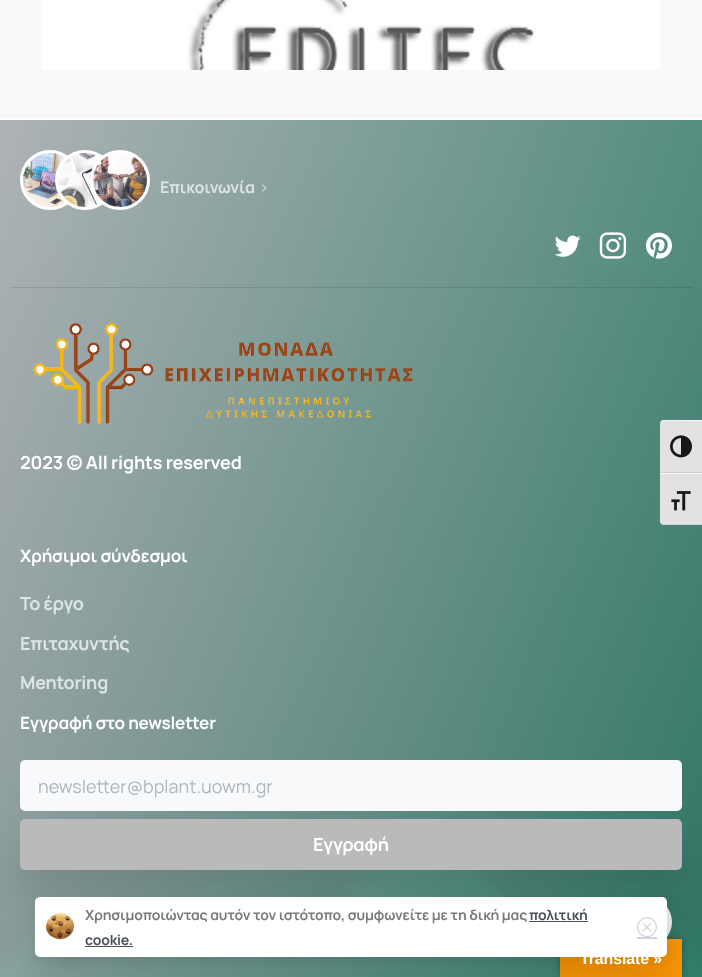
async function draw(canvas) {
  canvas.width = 702
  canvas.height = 977
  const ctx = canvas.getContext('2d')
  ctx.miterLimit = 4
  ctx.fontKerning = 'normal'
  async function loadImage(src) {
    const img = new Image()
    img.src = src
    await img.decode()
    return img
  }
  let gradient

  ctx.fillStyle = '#fff'
  ctx.fillRect(0, 0, 702, 977)
  ctx.fillStyle = '#f8f9fa'
  ctx.fillRect(0, 0, 702, 120)
  ctx.drawImage(await loadImage('image0.png'), 42, 0, 618, 70)
  gradient = ctx.createLinearGradient(351, 120, 351, 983)
  gradient.addColorStop(0, '#fff')
  gradient.addColorStop(1, '#f2295b')
  ctx.fillStyle = gradient
  ctx.fillRect(0, 130, 702, 847)
  ctx.save()
  ctx.beginPath()
  ctx.rect(0, 120, 702, 179)
  ctx.clip()
  ctx.fillStyle = '#ffffff4d'
  ctx.beginPath()
  ctx.moveTo(702, 300)
  ctx.lineTo(702, 120)
  ctx.lineTo(0, 120)
  ctx.lineTo(0, 300)
  ctx.lineTo(211, 152)
  ctx.bezierCurveTo(227, 141, 235, 140, 253, 146)
  ctx.closePath()
  ctx.fill()
  ctx.restore()
  ctx.fillStyle = '#ffffff99'
  ctx.beginPath()
  ctx.moveTo(702, 290)
  ctx.lineTo(702, 120)
  ctx.lineTo(0, 120)
  ctx.lineTo(0, 291)
  ctx.lineTo(211, 142)
  ctx.bezierCurveTo(227, 131, 235, 131, 253, 137)
  ctx.closePath()
  ctx.fill()
  ctx.fillStyle = '#fff'
  ctx.beginPath()
  ctx.moveTo(702, 279)
  ctx.lineTo(702, 119)
  ctx.lineTo(0, 119)
  ctx.lineTo(0, 280)
  ctx.lineTo(211, 131)
  ctx.bezierCurveTo(227, 120, 235, 120, 253, 126)
  ctx.closePath()
  ctx.fill()
  ctx.drawImage(await loadImage('image9.png'), 0, 815, 702, 162)
  gradient = ctx.createLinearGradient(-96, 398, 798, 705)
  gradient.addColorStop(0, '#abafb4f5')
  gradient.addColorStop(1, '#287864f5')
  ctx.fillStyle = gradient
  ctx.fillRect(0, 120, 702, 857)
  ctx.fillStyle = '#0000001a'
  ctx.fillRect(10, 287, 682, 1)
  ctx.fillStyle = '#fff'
  ctx.beginPath()
  ctx.arc(50, 180, 28.5, 0, 2 * Math.PI)
  ctx.fill()
  ctx.strokeStyle = '#fff'
  ctx.lineWidth = 3
  ctx.stroke()
  ctx.drawImage(await loadImage('image1.png'), 23, 153, 43, 54)
  ctx.beginPath()
  ctx.arc(85, 180, 28.5, 0, 2 * Math.PI)
  ctx.fill()
  ctx.stroke()
  ctx.drawImage(await loadImage('image2.png'), 58, 153, 43, 54)
  ctx.beginPath()
  ctx.arc(120, 180, 28.5, 0, 2 * Math.PI)
  ctx.fill()
  ctx.stroke()
  ctx.drawImage(await loadImage('image3.png'), 93, 154, 54, 53)
  ctx.letterSpacing = '-0.15px'
  ctx.font = 'bold 16px Manrope'
  ctx.fillStyle = '#dee4e4'
  ctx.fillText('Επικοινωνία', 160, 193)
  ctx.drawImage(await loadImage('image4.png'), 262, 184, 5, 8)
  ctx.drawImage(await loadImage('image5.png'), 554, 235, 27, 22)
  ctx.drawImage(await loadImage('image6.png'), 599, 232, 28, 27)
  ctx.drawImage(await loadImage('image7.png'), 646, 232, 26, 27)
  ctx.drawImage(await loadImage('image8.png'), 33, 323, 380, 101)
  ctx.font = 'bold 18px Manrope'
  ctx.fillStyle = '#fff'
  ctx.fillText('2023 © All rights reserved', 20, 469)
  ctx.letterSpacing = '-0.2px'
  ctx.font = 'bold 17.1px Manrope'
  ctx.fillText('Χρήσιμοι σύνδεσμοι', 20, 562)
  ctx.letterSpacing = '-0.25px'
  ctx.font = 'bold 18px Manrope'
  ctx.fillStyle = '#dee4e4'
  ctx.fillText('To έργο', 20, 610)
  ctx.fillText('Επιταχυντής', 20, 650)
  ctx.fillText('Μentoring', 20, 689)
  ctx.letterSpacing = '-0.2px'
  ctx.font = 'bold 17.1px Manrope'
  ctx.fillStyle = '#fff'
  ctx.fillText('Εγγραφή στο newsletter', 20, 729)
  ctx.fillStyle = '#f8f9fa'
  ctx.beginPath()
  ctx.roundRect(20, 760, 662, 51, 5)
  ctx.fill()
  ctx.letterSpacing = '0px'
  ctx.font = '18px Manrope'
  ctx.fillStyle = '#adb5bd'
  ctx.fillText('newsletter@bplant.uowm.gr', 38, 793)
  ctx.fillStyle = '#0000001a'
  ctx.filter = 'blur(17.5px)'
  ctx.beginPath()
  ctx.roundRect(20, 843, 662, 51, 5)
  ctx.fill()
  ctx.filter = 'none'
  ctx.fillStyle = '#bababa'
  ctx.beginPath()
  ctx.roundRect(20, 819, 662, 51, 5)
  ctx.fill()
  ctx.letterSpacing = '-0.25px'
  ctx.font = 'bold 18px Manrope'
  ctx.fillStyle = '#fff'
  ctx.fillText('Εγγραφή', 313, 851)
  ctx.fillStyle = '#e2e2e2'
  ctx.beginPath()
  ctx.roundRect(660, 420, 42, 53, [4, 0, 0, 0])
  ctx.fill()
  ctx.fillStyle = '#f5f5f5'
  ctx.beginPath()
  ctx.moveTo(664, 421)
  ctx.lineTo(702, 421)
  ctx.lineTo(702, 420)
  ctx.lineTo(664, 420)
  ctx.bezierCurveTo(662, 420, 660, 422, 660, 424)
  ctx.bezierCurveTo(660, 422, 662, 421, 664, 421)
  ctx.closePath()
  ctx.fill()
  ctx.fillStyle = '#d2d2d2'
  ctx.fillRect(660, 472, 42, 1)
  ctx.drawImage(await loadImage('image10.png'), 670, 435, 22, 23)
  ctx.fillStyle = '#e2e2e2'
  ctx.beginPath()
  ctx.roundRect(660, 473, 42, 52, [0, 0, 0, 4])
  ctx.fill()
  ctx.fillStyle = '#f5f5f5'
  ctx.fillRect(660, 473, 42, 1)
  ctx.fillStyle = '#d2d2d2'
  ctx.beginPath()
  ctx.moveTo(702, 525)
  ctx.lineTo(702, 524)
  ctx.lineTo(664, 524)
  ctx.bezierCurveTo(662, 524, 660, 523, 660, 521)
  ctx.bezierCurveTo(660, 523, 662, 525, 664, 525)
  ctx.closePath()
  ctx.fill()
  ctx.drawImage(await loadImage('image11.png'), 671, 491, 20, 20)
  ctx.fillStyle = '#0000001a'
  ctx.filter = 'blur(9.5px)'
  ctx.beginPath()
  ctx.roundRect(622, 905, 50, 50, 25)
  ctx.fill()
  ctx.filter = 'none'
  ctx.fillStyle = '#e9ecef'
  ctx.beginPath()
  ctx.arc(647, 922, 25, 0, 2 * Math.PI)
  ctx.fill()
  ctx.fillStyle = '#0000004d'
  ctx.filter = 'blur(4.5px)'
  ctx.beginPath()
  ctx.rect(560, 939, 122, 38)
  ctx.fill()
  ctx.filter = 'none'
  ctx.fillStyle = '#f89406'
  ctx.fillRect(560, 939, 122, 38)
  ctx.fillStyle = '#0000001a'
  ctx.filter = 'blur(17.5px)'
  ctx.beginPath()
  ctx.roundRect(35, 921, 632, 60, 5)
  ctx.fill()
  ctx.filter = 'none'
  ctx.fillStyle = '#0000000d'
  ctx.filter = 'blur(4px)'
  ctx.beginPath()
  ctx.roundRect(35, 901, 632, 60, 5)
  ctx.fill()
  ctx.filter = 'none'
  ctx.fillStyle = '#fff'
  ctx.beginPath()
  ctx.roundRect(35, 897, 632, 60, 5)
  ctx.fill()
  ctx.drawImage(await loadImage('image12.png'), 45, 912, 30, 28)
  ctx.letterSpacing = '-0.15px'
  ctx.font = 'bold 14px Manrope'
  ctx.fillStyle = '#7a7a7a'
  ctx.fillText('Χρησιμοποιώντας αυτόν τον ιστότοπο, συμφωνείτε με τη δική μας', 85, 920)
  ctx.fillStyle = '#495057'
  ctx.fillText('πολιτική', 529, 920)
  ctx.fillRect(529, 921, 59, 1)
  ctx.fillText('cookie.', 85, 945)
  ctx.fillRect(85, 946, 48, 1)
  ctx.drawImage(await loadImage('image13.png'), 637, 917, 20, 20)
  ctx.fillStyle = '#ced4da'
  ctx.fillRect(637, 937, 20, 2)
  ctx.font = 'bold 16px Liberation Sans'
  ctx.fillStyle = '#fff'
  ctx.fillText('Translate »', 580, 964)
}

draw(document.querySelector('canvas'))
